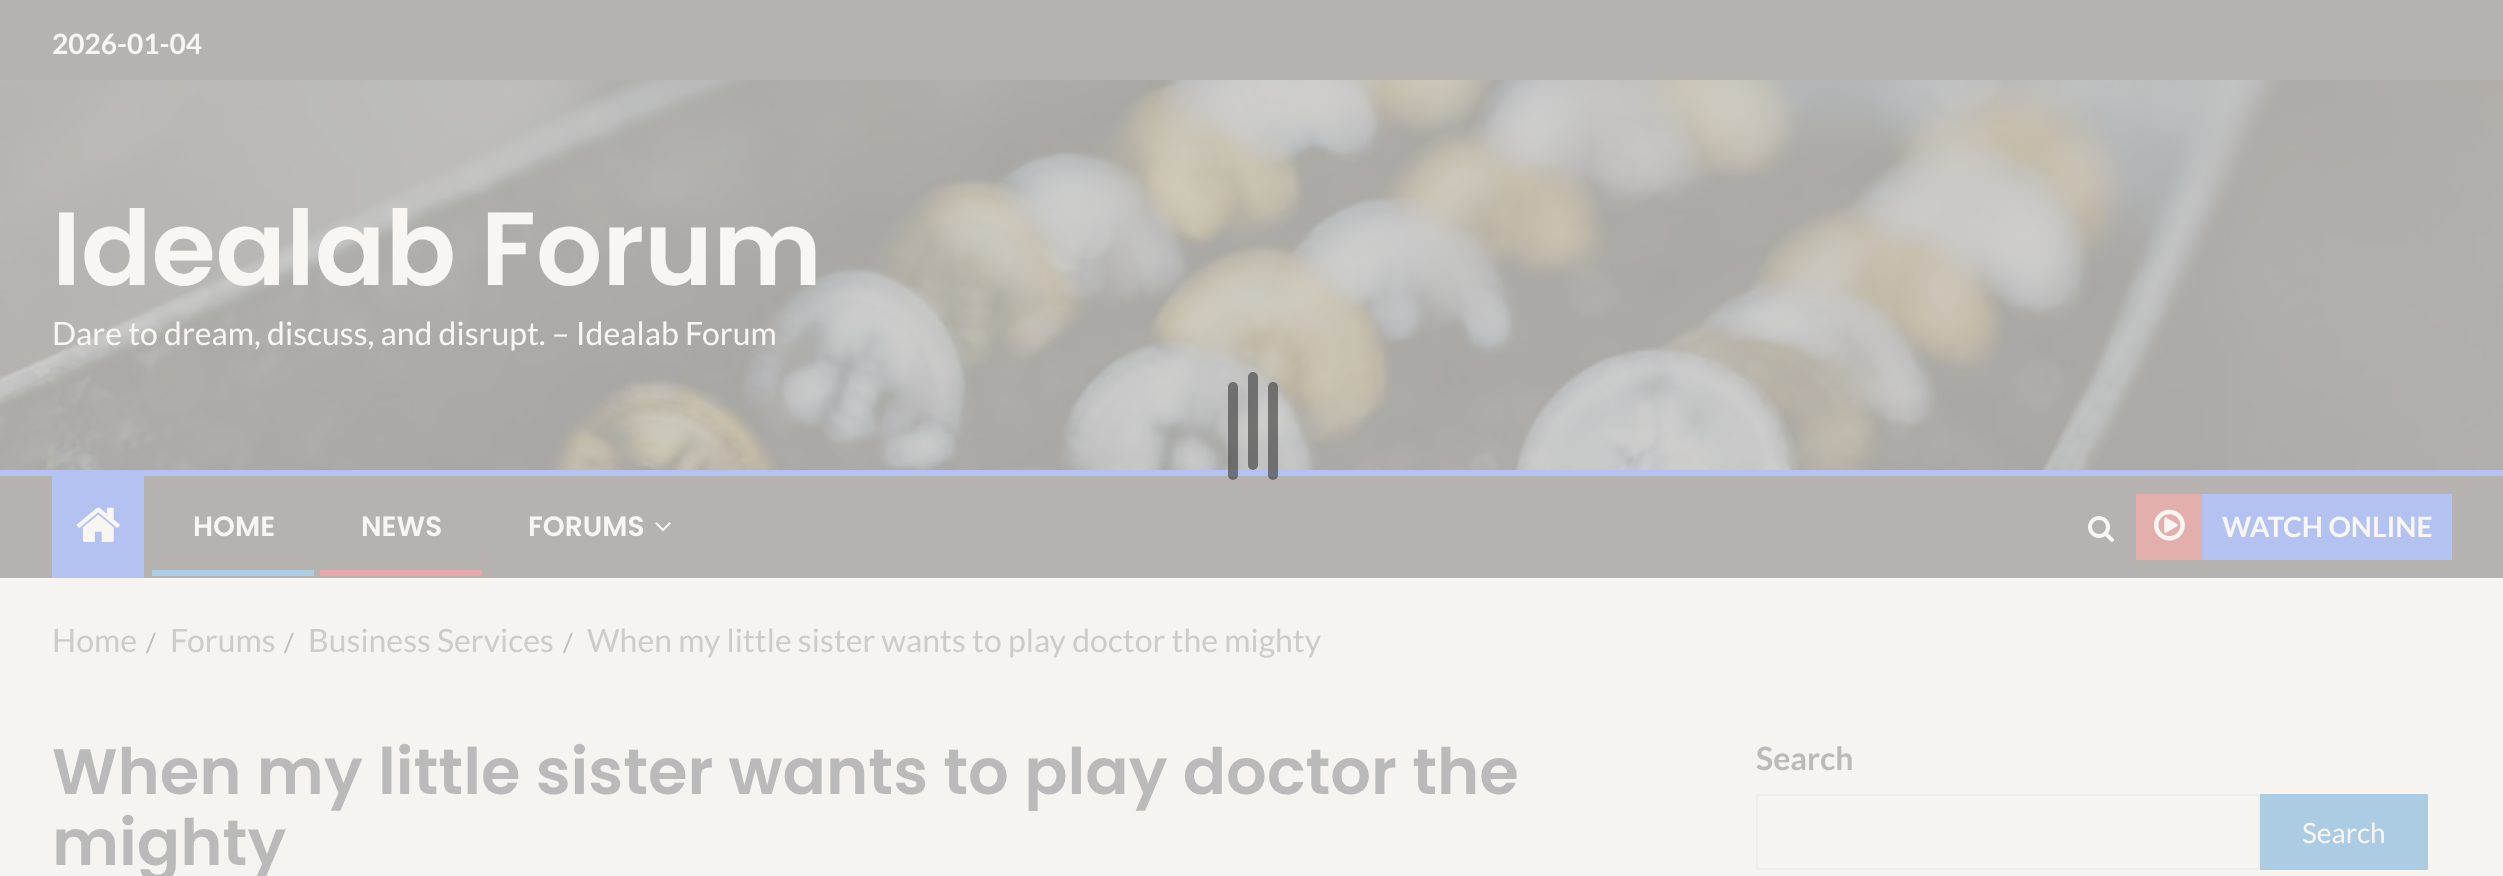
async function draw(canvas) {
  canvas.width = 2503
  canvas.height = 876
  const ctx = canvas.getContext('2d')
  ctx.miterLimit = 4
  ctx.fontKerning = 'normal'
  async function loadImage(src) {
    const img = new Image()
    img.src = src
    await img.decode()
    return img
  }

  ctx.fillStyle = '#f6f4f1'
  ctx.fillRect(0, 0, 2503, 876)
  ctx.fillStyle = '#b5b2b0'
  ctx.fillRect(0, 0, 2503, 80)
  ctx.font = 'bold 28px Lato'
  ctx.fillStyle = '#f8f6f3'
  ctx.fillText('2026-01-04', 52, 54)
  ctx.drawImage(await loadImage('image0.png'), 0, 80, 2503, 390)
  ctx.font = '600 104px Poppins'
  ctx.fillText('Idealab Forum', 52, 285)
  ctx.font = '32px Lato'
  ctx.fillText('Dare to dream, discuss, and disrupt. – Idealab Forum', 52, 345)
  ctx.fillStyle = '#b5b2b0'
  ctx.fillRect(0, 476, 2503, 102)
  ctx.fillStyle = '#b4c2f1'
  ctx.fillRect(0, 470, 2503, 6)
  ctx.fillRect(52, 476, 92, 102)
  ctx.drawImage(await loadImage('image1.png'), 76, 507, 44, 35)
  ctx.font = '600 28px Poppins'
  ctx.fillStyle = '#f8f6f3'
  ctx.fillText('HOME', 193, 536)
  ctx.fillStyle = '#abcce2'
  ctx.fillRect(152, 570, 162, 6)
  ctx.fillStyle = '#f8f6f3'
  ctx.fillText('NEWS', 361, 536)
  ctx.fillStyle = '#e8a7a9'
  ctx.fillRect(320, 570, 162, 6)
  ctx.fillStyle = '#f8f6f3'
  ctx.fillText('FORUMS', 528, 536)
  ctx.drawImage(await loadImage('image2.png'), 655, 522, 16, 10)
  ctx.drawImage(await loadImage('image3.png'), 2088, 516, 26, 26)
  ctx.fillStyle = '#e3afac'
  ctx.fillRect(2136, 494, 66, 66)
  ctx.drawImage(await loadImage('image4.png'), 2154, 509, 31, 32)
  ctx.fillStyle = '#b4c2f1'
  ctx.fillRect(2202, 494, 250, 66)
  ctx.font = 'bold 28px Lato'
  ctx.fillStyle = '#f8f6f3'
  ctx.fillText('WATCH ONLINE', 2222, 537)
  ctx.font = '32px Lato'
  ctx.fillStyle = '#ceccc9'
  ctx.fillText('Home', 52, 652)
  ctx.font = '26px Lato'
  ctx.fillStyle = '#bbbaba'
  ctx.fillText('/', 146, 652)
  ctx.font = '32px Lato'
  ctx.fillStyle = '#ceccc9'
  ctx.fillText('Forums', 170, 652)
  ctx.font = '26px Lato'
  ctx.fillStyle = '#bbbaba'
  ctx.fillText('/', 284, 652)
  ctx.font = '32px Lato'
  ctx.fillStyle = '#ceccc9'
  ctx.fillText('Business Services', 308, 652)
  ctx.font = '26px Lato'
  ctx.fillStyle = '#bbbaba'
  ctx.fillText('/', 563, 652)
  ctx.font = '32px Lato'
  ctx.fillStyle = '#ceccc9'
  ctx.fillText('When my little sister wants to play doctor the mighty', 587, 652)
  ctx.font = '600 64px Poppins'
  ctx.fillStyle = '#bbbaba'
  ctx.fillText('When my little sister wants to play doctor the', 52, 794)
  ctx.fillText('mighty', 52, 865)
  ctx.font = 'bold 32px Lato'
  ctx.fillText('Search', 1756, 770)
  ctx.strokeStyle = '#f0eeeb'
  ctx.lineWidth = 2
  ctx.strokeRect(1757, 795, 502, 74)
  ctx.fillStyle = '#abcce2'
  ctx.fillRect(2260, 794, 168, 76)
  ctx.font = '28px Lato'
  ctx.fillStyle = '#f8f6f3'
  ctx.fillText('Search', 2302, 843)
  ctx.fillStyle = '#4a4a4ab0'
  ctx.beginPath()
  ctx.roundRect(1248, 372, 10, 98, 5)
  ctx.fill()
  ctx.beginPath()
  ctx.roundRect(1228, 382, 10, 98, 5)
  ctx.fill()
  ctx.beginPath()
  ctx.roundRect(1268, 382, 10, 98, 5)
  ctx.fill()
}

draw(document.querySelector('canvas'))
